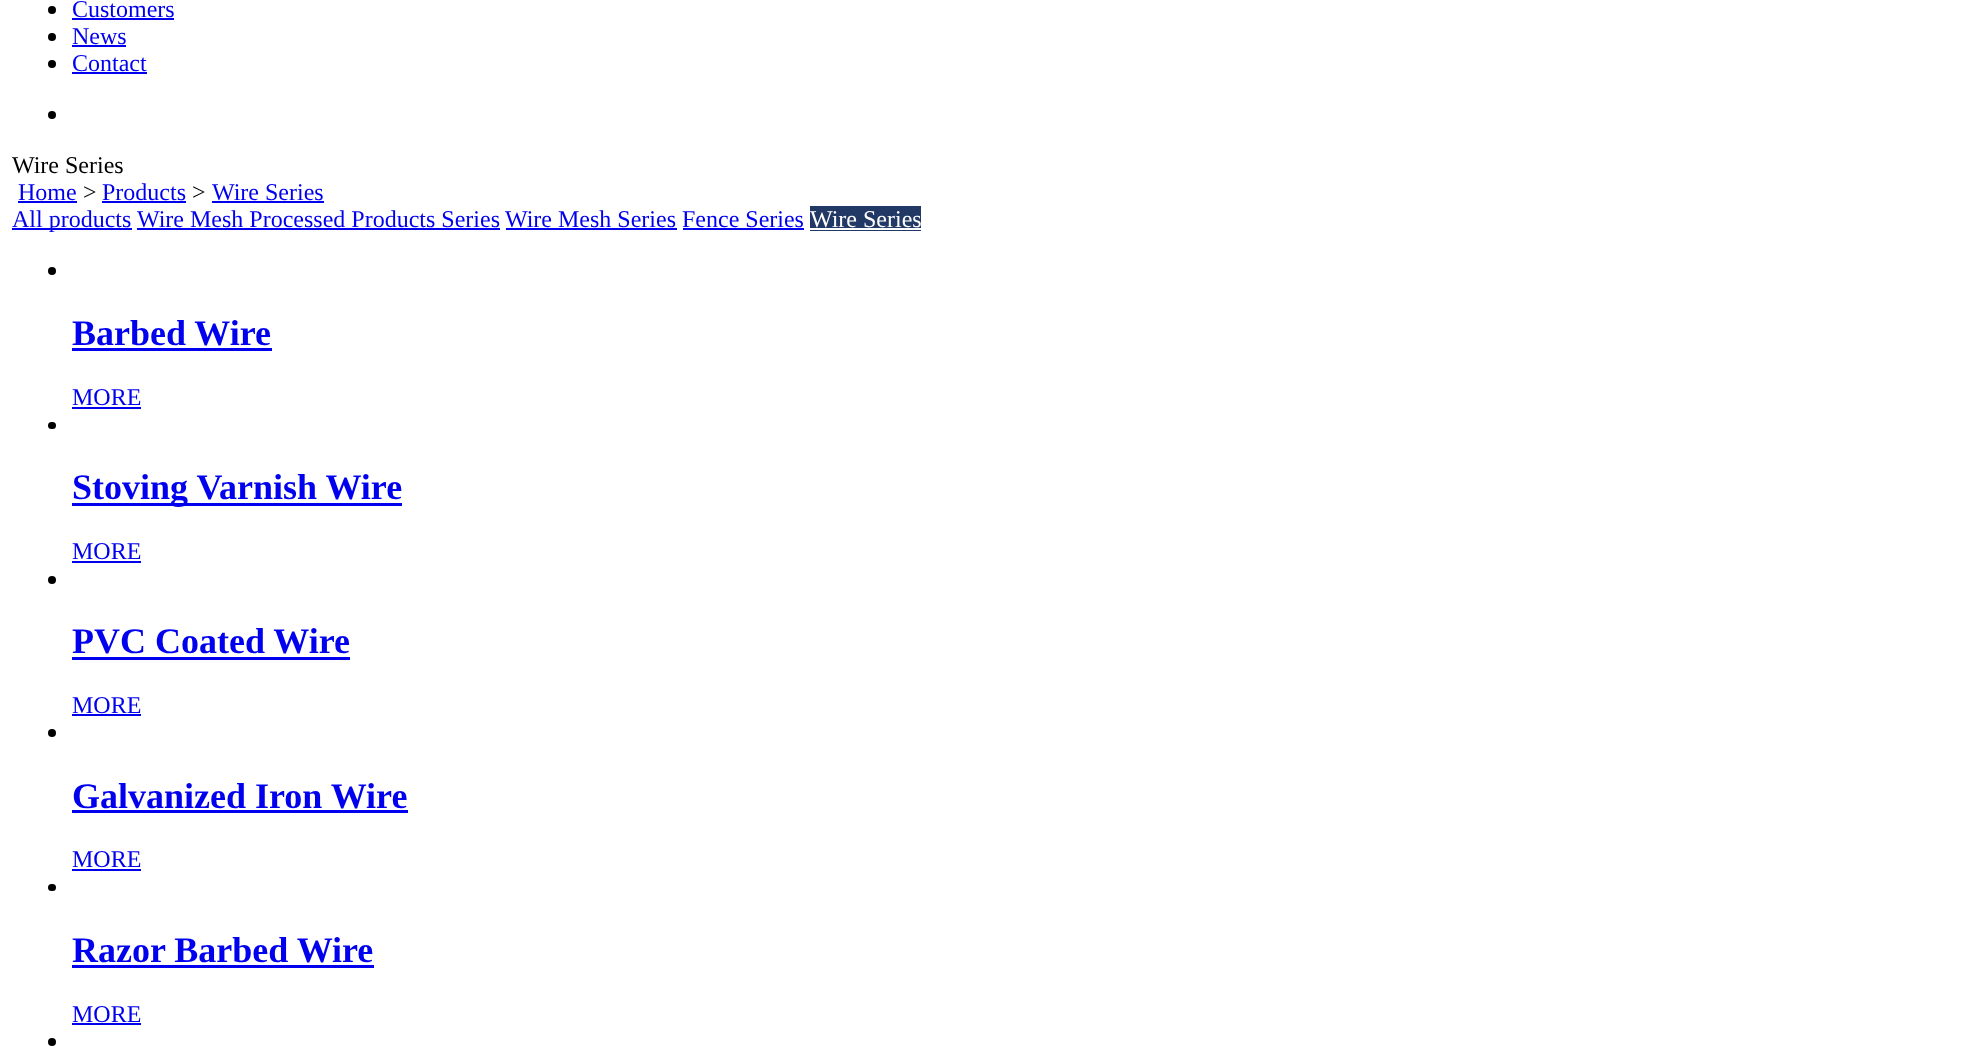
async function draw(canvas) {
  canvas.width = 1963
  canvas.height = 1054
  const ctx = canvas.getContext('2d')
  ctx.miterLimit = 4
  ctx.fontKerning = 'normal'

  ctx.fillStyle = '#fff'
  ctx.fillRect(0, 0, 1963, 1054)
  ctx.fillStyle = '#000'
  ctx.beginPath()
  ctx.arc(52, 10, 4, 0, 2 * Math.PI)
  ctx.fill()
  ctx.font = '24px Liberation Serif'
  ctx.fillStyle = '#00e'
  ctx.fillText('Customers', 72, 17)
  ctx.fillRect(72, 18, 102, 2)
  ctx.fillStyle = '#000'
  ctx.beginPath()
  ctx.arc(52, 37, 4, 0, 2 * Math.PI)
  ctx.fill()
  ctx.fillStyle = '#00e'
  ctx.fillText('News', 72, 44)
  ctx.fillRect(72, 45, 54, 2)
  ctx.fillStyle = '#000'
  ctx.beginPath()
  ctx.arc(52, 64, 4, 0, 2 * Math.PI)
  ctx.fill()
  ctx.fillStyle = '#00e'
  ctx.fillText('Contact', 72, 71)
  ctx.fillRect(72, 72, 75, 2)
  ctx.fillStyle = '#000'
  ctx.beginPath()
  ctx.arc(52, 115, 4, 0, 2 * Math.PI)
  ctx.fill()
  ctx.fillText('Wire Series', 12, 173)
  ctx.fillStyle = '#00e'
  ctx.fillText('Home', 18, 200)
  ctx.fillRect(18, 201, 59, 2)
  ctx.fillStyle = '#000'
  ctx.fillText('>', 83, 200)
  ctx.fillStyle = '#00e'
  ctx.fillText('Products', 102, 200)
  ctx.fillRect(102, 201, 84, 2)
  ctx.fillStyle = '#000'
  ctx.fillText('>', 192, 200)
  ctx.fillStyle = '#00e'
  ctx.fillText('Wire Series', 212, 200)
  ctx.fillRect(212, 201, 112, 2)
  ctx.fillRect(12, 228, 120, 2)
  ctx.fillText('All products', 12, 227)
  ctx.fillText('Wire Mesh Processed Products Series', 137, 227)
  ctx.fillRect(137, 228, 363, 2)
  ctx.fillText('Wire Mesh Series Fence Series', 505, 227)
  ctx.fillRect(506, 228, 171, 2)
  ctx.fillStyle = '#223965'
  ctx.fillRect(810, 206, 111, 25)
  ctx.fillStyle = '#fff'
  ctx.fillText('Wire Series', 810, 227)
  ctx.fillRect(810, 228, 111, 2)
  ctx.fillStyle = '#00e'
  ctx.fillRect(683, 228, 121, 2)
  ctx.fillStyle = '#000'
  ctx.beginPath()
  ctx.arc(52, 271, 4, 0, 2 * Math.PI)
  ctx.fill()
  ctx.font = 'bold 36px Liberation Serif'
  ctx.fillStyle = '#00e'
  ctx.fillText('Barbed Wire', 72, 345)
  ctx.fillRect(72, 348, 200, 3)
  ctx.font = '24px Liberation Serif'
  ctx.fillText('MORE', 72, 405)
  ctx.fillRect(72, 407, 69, 2)
  ctx.fillStyle = '#000'
  ctx.beginPath()
  ctx.roundRect(48, 422, 8, 7, 3.5)
  ctx.fill()
  ctx.fillStyle = '#00e'
  ctx.fillRect(72, 503, 330, 3)
  ctx.font = 'bold 36px Liberation Serif'
  ctx.fillText('Stoving Varnish Wire', 72, 499)
  ctx.font = '24px Liberation Serif'
  ctx.fillText('MORE', 72, 559)
  ctx.fillRect(72, 561, 69, 2)
  ctx.fillStyle = '#000'
  ctx.beginPath()
  ctx.arc(52, 580, 4, 0, 2 * Math.PI)
  ctx.fill()
  ctx.font = 'bold 36px Liberation Serif'
  ctx.fillStyle = '#00e'
  ctx.fillText('PVC Coated Wire', 72, 653)
  ctx.fillRect(72, 657, 278, 3)
  ctx.font = '24px Liberation Serif'
  ctx.fillText('MORE', 72, 713)
  ctx.fillRect(72, 714, 69, 2)
  ctx.fillStyle = '#000'
  ctx.beginPath()
  ctx.arc(52, 733, 4, 0, 2 * Math.PI)
  ctx.fill()
  ctx.font = 'bold 36px Liberation Serif'
  ctx.fillStyle = '#00e'
  ctx.fillText('Galvanized Iron Wire', 72, 808)
  ctx.fillRect(72, 810, 336, 3)
  ctx.font = '24px Liberation Serif'
  ctx.fillText('MORE', 72, 867)
  ctx.fillRect(72, 869, 69, 2)
  ctx.fillStyle = '#000'
  ctx.beginPath()
  ctx.roundRect(48, 884, 8, 7, 3.5)
  ctx.fill()
  ctx.font = 'bold 36px Liberation Serif'
  ctx.fillStyle = '#00e'
  ctx.fillText('Razor Barbed Wire', 72, 962)
  ctx.fillRect(72, 965, 302, 3)
  ctx.font = '24px Liberation Serif'
  ctx.fillText('MORE', 72, 1022)
  ctx.fillRect(72, 1023, 69, 2)
  ctx.fillStyle = '#000'
  ctx.beginPath()
  ctx.arc(52, 1042, 4, 0, 2 * Math.PI)
  ctx.fill()
}

draw(document.querySelector('canvas'))
